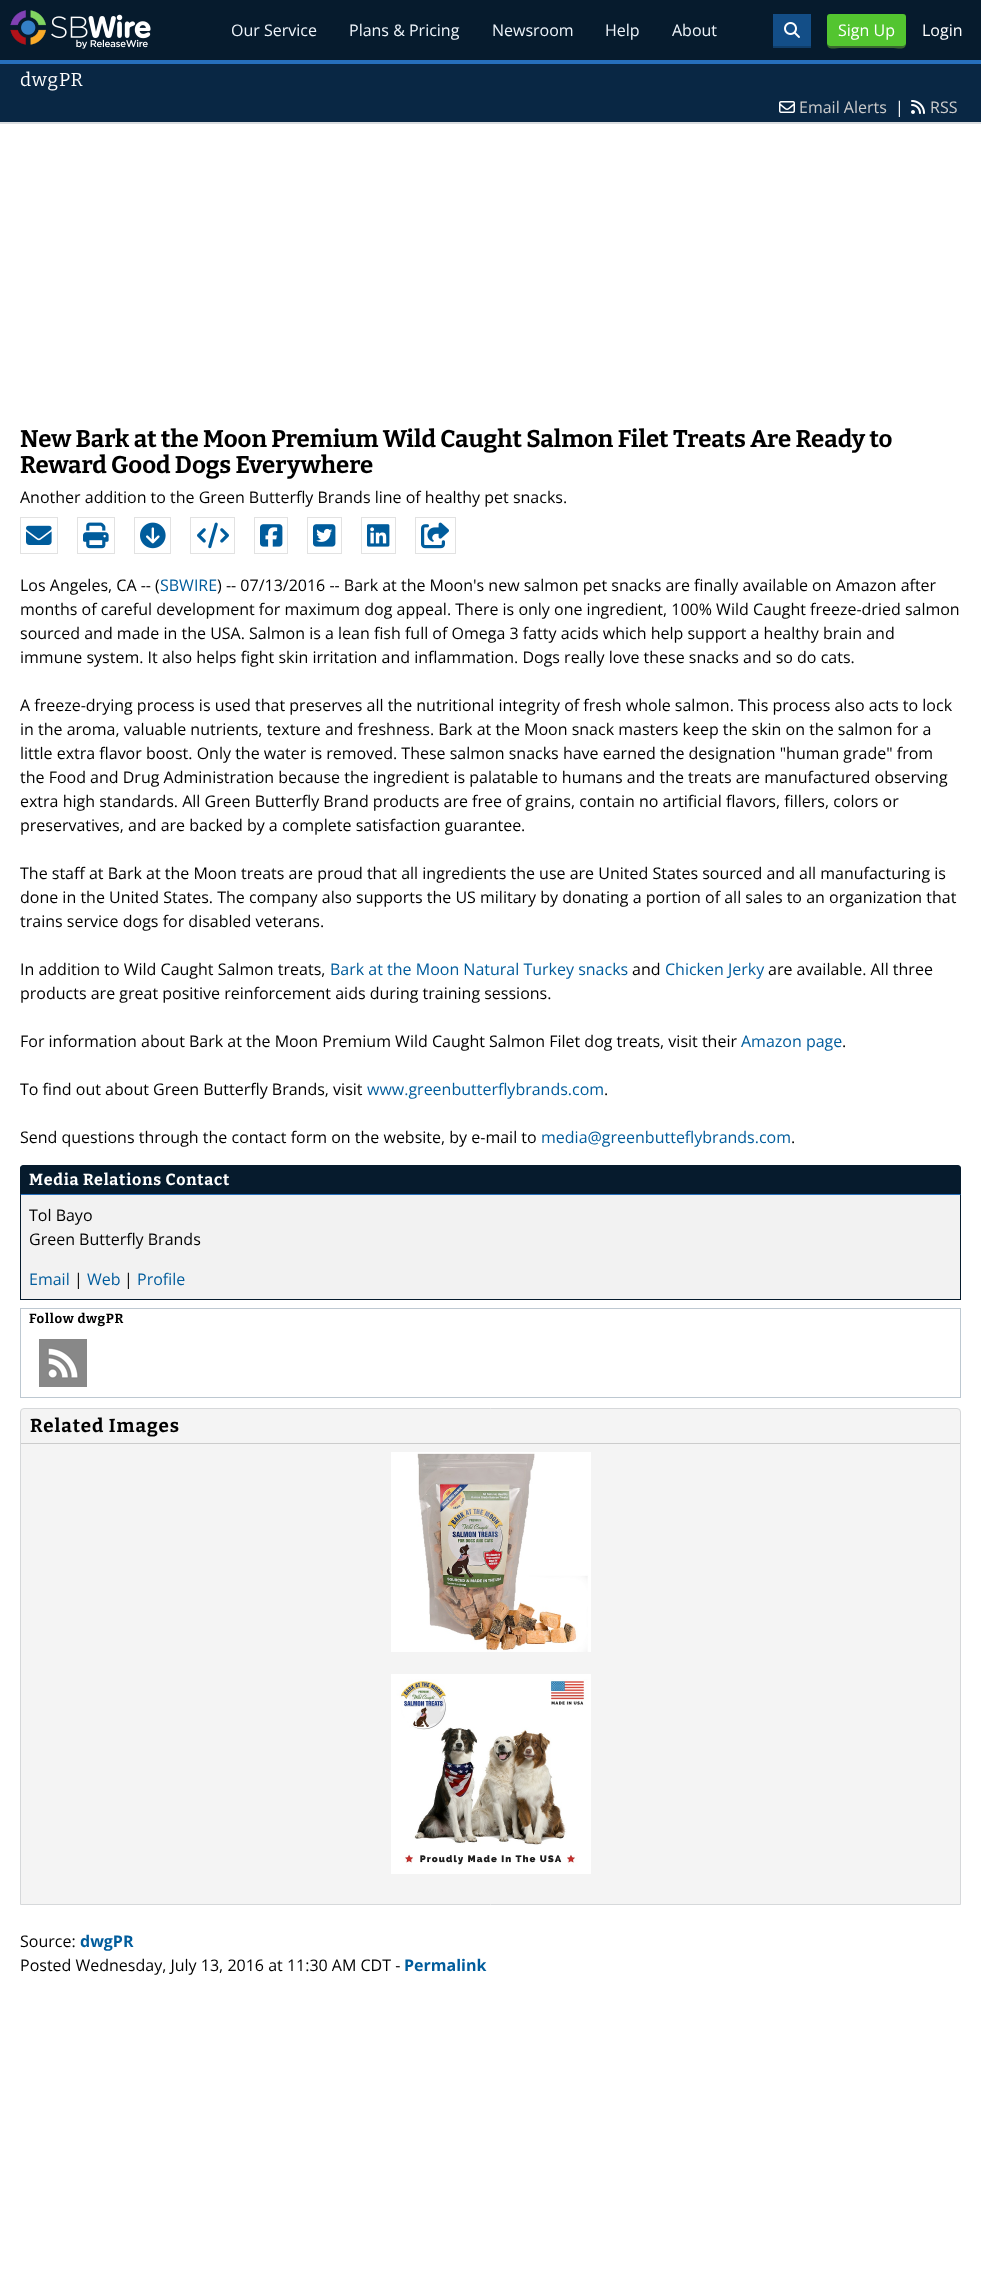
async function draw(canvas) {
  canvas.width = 981
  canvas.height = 2294
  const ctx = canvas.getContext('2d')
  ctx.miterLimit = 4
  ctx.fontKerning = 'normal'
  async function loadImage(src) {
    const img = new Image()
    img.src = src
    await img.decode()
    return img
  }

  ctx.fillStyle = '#fff'
  ctx.fillRect(0, 0, 981, 2294)
  ctx.fillStyle = '#061b2d'
  ctx.fillRect(0, 0, 981, 60)
  ctx.fillStyle = '#266fbc'
  ctx.fillRect(0, 60, 981, 4)
  ctx.drawImage(await loadImage('image0.png'), 10, 10, 141, 39)
  ctx.font = '16px Open Sans'
  ctx.fillStyle = '#eff5fb'
  ctx.fillText('Our Service', 231, 36)
  ctx.fillText('Plans & Pricing', 349, 36)
  ctx.fillText('Newsroom', 492, 36)
  ctx.fillText('Help', 605, 36)
  ctx.fillText('About', 672, 36)
  ctx.fillStyle = '#103e6a'
  ctx.fillRect(773, 46, 38, 2)
  ctx.fillStyle = '#134e87'
  ctx.fillRect(773, 14, 38, 32)
  ctx.drawImage(await loadImage('image1.png'), 784, 22, 16, 16)
  ctx.fillStyle = '#3b6a2e'
  ctx.beginPath()
  ctx.moveTo(827, 43)
  ctx.bezierCurveTo(827, 51, 834, 48, 842, 48)
  ctx.lineTo(891, 48)
  ctx.bezierCurveTo(899, 48, 906, 51, 906, 43)
  ctx.bezierCurveTo(906, 45, 905, 46, 903, 46)
  ctx.lineTo(830, 46)
  ctx.bezierCurveTo(828, 46, 827, 45, 827, 43)
  ctx.closePath()
  ctx.fill()
  ctx.fillStyle = '#53c530'
  ctx.beginPath()
  ctx.roundRect(827, 14, 79, 32, 3)
  ctx.fill()
  ctx.fillStyle = '#fff'
  ctx.fillText('Sign Up', 838, 36)
  ctx.fillText('Login', 922, 36)
  ctx.fillStyle = '#092744'
  ctx.fillRect(0, 64, 981, 58)
  ctx.fillStyle = '#dadde0'
  ctx.fillRect(0, 122, 981, 2)
  ctx.letterSpacing = '1px'
  ctx.font = '18.75px Bitter'
  ctx.fillStyle = '#fff'
  ctx.fillText('dwgPR', 20, 86)
  ctx.drawImage(await loadImage('image2.png'), 779, 101, 16, 12)
  ctx.letterSpacing = '0px'
  ctx.font = '16px Open Sans'
  ctx.fillStyle = '#ccc'
  ctx.fillText('Email Alerts', 799, 113)
  ctx.fillStyle = '#fff'
  ctx.fillText('|', 895, 113)
  ctx.drawImage(await loadImage('image3.png'), 911, 100, 14, 14)
  ctx.fillStyle = '#ccc'
  ctx.fillText('RSS', 930, 113)
  ctx.font = 'bold 24px Bitter'
  ctx.fillStyle = '#000'
  ctx.fillText('New Bark at the Moon Premium Wild Caught Salmon Filet Treats Are Ready to', 20, 447)
  ctx.fillText('Reward Good Dogs Everywhere', 20, 473)
  ctx.font = '16px Open Sans'
  ctx.fillText('Another addition to the Green Butterfly Brands line of healthy pet snacks.', 20, 503)
  ctx.strokeStyle = '#e2e2e2'
  ctx.strokeRect(20.5, 517.5, 37, 36)
  ctx.drawImage(await loadImage('image4.png'), 26, 525, 26, 20)
  ctx.strokeRect(77.5, 517.5, 37, 36)
  ctx.drawImage(await loadImage('image5.png'), 83, 522, 26, 27)
  ctx.strokeRect(134.5, 517.5, 36, 36)
  ctx.drawImage(await loadImage('image6.png'), 140, 522, 26, 27)
  ctx.strokeRect(190.5, 517.5, 44, 36)
  ctx.drawImage(await loadImage('image7.png'), 197, 522, 32, 27)
  ctx.strokeRect(254.5, 517.5, 33, 36)
  ctx.drawImage(await loadImage('image8.png'), 260, 524, 23, 23)
  ctx.strokeRect(307.5, 517.5, 34, 36)
  ctx.drawImage(await loadImage('image9.png'), 313, 524, 23, 23)
  ctx.strokeRect(361.5, 517.5, 34, 36)
  ctx.drawImage(await loadImage('image10.png'), 367, 524, 23, 23)
  ctx.strokeRect(415.5, 517.5, 40, 36)
  ctx.drawImage(await loadImage('image11.png'), 421, 522, 28, 27)
  ctx.fillText('Los Angeles, CA -- (', 20, 591)
  ctx.fillStyle = '#005c9c'
  ctx.fillText('SBWIRE', 160, 591)
  ctx.fillStyle = '#000'
  ctx.fillText(') -- 07/13/2016 -- Bark at the Moon\'s new salmon pet snacks are finally available on Amazon after', 217, 591)
  ctx.fillText('months of careful development for maximum dog appeal. There is only one ingredient, 100% Wild Caught freeze-dried salmon', 20, 615)
  ctx.fillText('sourced and made in the USA. Salmon is a lean fish full of Omega 3 fatty acids which help support a healthy brain and', 20, 639)
  ctx.fillText('immune system. It also helps fight skin irritation and inflammation. Dogs really love these snacks and so do cats.', 20, 663)
  ctx.fillText('A freeze-drying process is used that preserves all the nutritional integrity of fresh whole salmon. This process also acts to lock', 20, 711)
  ctx.fillText('in the aroma, valuable nutrients, texture and freshness. Bark at the Moon snack masters keep the skin on the salmon for a', 20, 735)
  ctx.fillText('little extra flavor boost. Only the water is removed. These salmon snacks have earned the designation "human grade" from', 20, 759)
  ctx.fillText('the Food and Drug Administration because the ingredient is palatable to humans and the treats are manufactured observing', 20, 783)
  ctx.fillText('extra high standards. All Green Butterfly Brand products are free of grains, contain no artificial flavors, fillers, colors or', 20, 807)
  ctx.fillText('preservatives, and are backed by a complete satisfaction guarantee.', 20, 831)
  ctx.fillText('The staff at Bark at the Moon treats are proud that all ingredients the use are United States sourced and all manufacturing is', 20, 879)
  ctx.fillText('done in the United States. The company also supports the US military by donating a portion of all sales to an organization that', 20, 903)
  ctx.fillText('trains service dogs for disabled veterans.', 20, 927)
  ctx.fillText('In addition to Wild Caught Salmon treats,', 20, 975)
  ctx.fillStyle = '#005c9c'
  ctx.fillText('Bark at the Moon Natural Turkey snacks', 330, 975)
  ctx.fillStyle = '#000'
  ctx.fillText('and', 632, 975)
  ctx.fillStyle = '#005c9c'
  ctx.fillText('Chicken Jerky', 665, 975)
  ctx.fillStyle = '#000'
  ctx.fillText('are available. All three', 768, 975)
  ctx.fillText('products are great positive reinforcement aids during training sessions.', 20, 999)
  ctx.fillText('For information about Bark at the Moon Premium Wild Caught Salmon Filet dog treats, visit their', 20, 1047)
  ctx.fillStyle = '#005c9c'
  ctx.fillText('Amazon page', 741, 1047)
  ctx.fillStyle = '#000'
  ctx.fillText('.', 842, 1047)
  ctx.fillText('To find out about Green Butterfly Brands, visit', 20, 1095)
  ctx.fillStyle = '#005c9c'
  ctx.fillText('www.greenbutterflybrands.com', 367, 1095)
  ctx.fillStyle = '#000'
  ctx.fillText('.', 604, 1095)
  ctx.fillText('Send questions through the contact form on the website, by e-mail to', 20, 1143)
  ctx.fillStyle = '#005c9c'
  ctx.fillText('media@greenbutteflybrands.com', 541, 1143)
  ctx.fillStyle = '#000'
  ctx.fillText('.', 791, 1143)
  ctx.fillStyle = '#061b2d'
  ctx.beginPath()
  ctx.roundRect(20, 1165, 941, 30, [4, 4, 0, 0])
  ctx.fill()
  ctx.beginPath()
  ctx.moveTo(24, 1165)
  ctx.lineTo(21, 1166)
  ctx.lineTo(22, 1167)
  ctx.lineTo(24, 1166)
  ctx.lineTo(957, 1166)
  ctx.lineTo(959, 1167)
  ctx.lineTo(960, 1166)
  ctx.lineTo(957, 1165)
  ctx.closePath()
  ctx.fill()
  ctx.beginPath()
  ctx.moveTo(961, 1195)
  ctx.lineTo(961, 1169)
  ctx.bezierCurveTo(961, 1168, 960.5, 1167, 960, 1166)
  ctx.lineTo(959, 1167)
  ctx.bezierCurveTo(960, 1167, 960, 1168, 960, 1169)
  ctx.lineTo(960, 1194)
  ctx.closePath()
  ctx.fill()
  ctx.fillStyle = '#266fbc'
  ctx.beginPath()
  ctx.moveTo(961, 1195)
  ctx.lineTo(960, 1194)
  ctx.lineTo(21, 1194)
  ctx.lineTo(20, 1195)
  ctx.closePath()
  ctx.fill()
  ctx.fillStyle = '#061b2d'
  ctx.beginPath()
  ctx.moveTo(20, 1195)
  ctx.lineTo(21, 1194)
  ctx.lineTo(21, 1169)
  ctx.bezierCurveTo(21, 1168, 21, 1167, 22, 1167)
  ctx.lineTo(21, 1166)
  ctx.bezierCurveTo(20.5, 1167, 20, 1168, 20, 1169)
  ctx.closePath()
  ctx.fill()
  ctx.letterSpacing = '0.8px'
  ctx.font = 'bold 16px Bitter'
  ctx.fillStyle = '#fff'
  ctx.fillText('Media Relations Contact', 29, 1185)
  ctx.fillStyle = '#f2f2f2'
  ctx.fillRect(21, 1195, 939, 104)
  ctx.fillStyle = '#061b2d'
  ctx.fillRect(960, 1195, 1, 105)
  ctx.fillRect(20, 1299, 941, 1)
  ctx.fillRect(20, 1195, 1, 105)
  ctx.letterSpacing = '0px'
  ctx.font = '16px Open Sans'
  ctx.fillStyle = '#000'
  ctx.fillText('Tol Bayo', 29, 1221)
  ctx.fillText('Green Butterfly Brands', 29, 1245)
  ctx.fillStyle = '#005c9c'
  ctx.fillText('Email', 29, 1285)
  ctx.fillStyle = '#000'
  ctx.fillText('|', 74, 1285)
  ctx.fillStyle = '#005c9c'
  ctx.fillText('Web', 87, 1285)
  ctx.fillStyle = '#000'
  ctx.fillText('|', 124, 1285)
  ctx.fillStyle = '#005c9c'
  ctx.fillText('Profile', 137, 1285)
  ctx.strokeStyle = '#bdc8d1'
  ctx.strokeRect(20.5, 1308.5, 940, 89)
  ctx.letterSpacing = '0.7px'
  ctx.font = 'bold 13.25px Bitter'
  ctx.fillStyle = '#000'
  ctx.fillText('Follow dwgPR', 29, 1323)
  ctx.drawImage(await loadImage('image12.png'), 39, 1339, 48, 48)
  ctx.fillStyle = '#f4f4f4'
  ctx.beginPath()
  ctx.roundRect(20.5, 1408.5, 940, 496, [3.5, 3.5, 0, 0])
  ctx.fill()
  ctx.strokeStyle = '#d6d8da'
  ctx.stroke()
  ctx.fillStyle = '#ccc'
  ctx.fillRect(21, 1443, 939, 1)
  ctx.letterSpacing = '1px'
  ctx.font = 'bold 18.75px Bitter'
  ctx.fillStyle = '#000'
  ctx.fillText('Related Images', 30, 1432)
  ctx.drawImage(await loadImage('image13.png'), 391, 1452, 200, 200)
  ctx.drawImage(await loadImage('image14.png'), 391, 1674, 200, 200)
  ctx.letterSpacing = '0px'
  ctx.font = '16px Open Sans'
  ctx.fillText('Source:', 20, 1947)
  ctx.font = 'bold 16px Open Sans'
  ctx.fillStyle = '#005c9c'
  ctx.fillText('dwgPR', 80, 1947)
  ctx.font = '16px Open Sans'
  ctx.fillStyle = '#000'
  ctx.fillText('Posted Wednesday, July 13, 2016 at 11:30 AM CDT -', 20, 1971)
  ctx.font = 'bold 16px Open Sans'
  ctx.fillStyle = '#005c9c'
  ctx.fillText('Permalink', 404, 1971)
}

draw(document.querySelector('canvas'))
